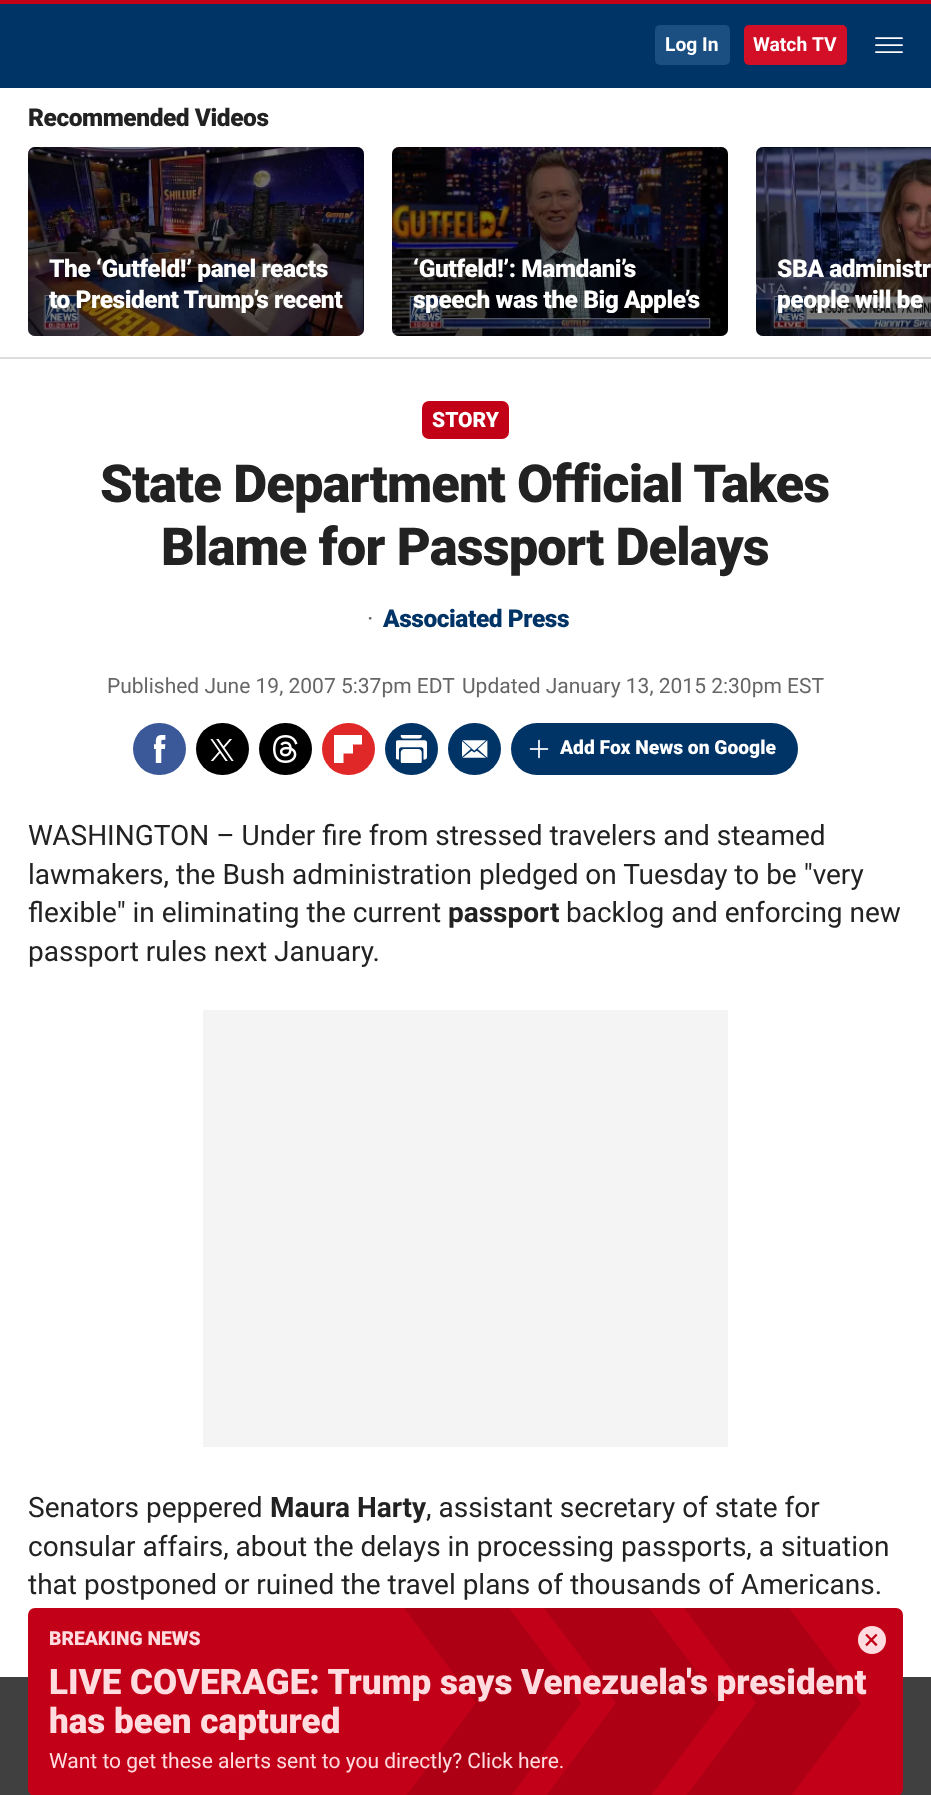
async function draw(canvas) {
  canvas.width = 931
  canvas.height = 1795
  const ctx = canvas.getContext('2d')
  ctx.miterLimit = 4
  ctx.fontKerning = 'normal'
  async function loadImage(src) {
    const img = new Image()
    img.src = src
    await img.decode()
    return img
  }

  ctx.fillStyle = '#fff'
  ctx.fillRect(0, 0, 931, 1795)
  ctx.fillStyle = '#404040'
  ctx.fillRect(0, 1677, 931, 118)
  ctx.fillStyle = '#036'
  ctx.fillRect(0, 4, 931, 84)
  ctx.fillStyle = '#c20017'
  ctx.fillRect(0, 0, 931, 4)
  ctx.fillStyle = '#1b4e81'
  ctx.beginPath()
  ctx.roundRect(655, 25, 75, 40, 5)
  ctx.fill()
  ctx.font = 'bold 19.25px Roboto'
  ctx.fillStyle = '#fff'
  ctx.fillText('Log In', 665, 51)
  ctx.fillStyle = '#d20f26'
  ctx.beginPath()
  ctx.roundRect(744, 25, 103, 40, 5)
  ctx.fill()
  ctx.fillStyle = '#fff'
  ctx.fillText('Watch', 753, 51)
  ctx.fillText('TV', 812, 51)
  ctx.drawImage(await loadImage('image0.png'), 875, 37, 28, 16)
  ctx.fillStyle = '#ddd'
  ctx.fillRect(0, 357, 931, 2)
  ctx.letterSpacing = '-0.45px'
  ctx.font = '900 24.5px Roboto'
  ctx.fillStyle = '#222'
  ctx.fillText('Recommended Videos', 28, 126)
  ctx.drawImage(await loadImage('image1.png'), 28, 147, 336, 189)
  ctx.fillStyle = '#00000080'
  ctx.beginPath()
  ctx.roundRect(28, 147, 336, 189, 7)
  ctx.fill()
  ctx.fillStyle = '#fff'
  ctx.fillText('The ‘Gutfeld!’ panel reacts', 49, 277)
  ctx.fillText('to President Trump’s recent', 49, 308)
  ctx.drawImage(await loadImage('image2.png'), 392, 147, 336, 189)
  ctx.fillStyle = '#00000080'
  ctx.beginPath()
  ctx.roundRect(392, 147, 336, 189, 7)
  ctx.fill()
  ctx.fillStyle = '#fff'
  ctx.fillText('‘Gutfeld!’: Mamdani’s', 413, 277)
  ctx.fillText('speech was the Big Apple’s', 413, 308)
  ctx.drawImage(await loadImage('image3.png'), 756, 147, 175, 189)
  ctx.fillStyle = '#00000080'
  ctx.beginPath()
  ctx.roundRect(756, 147, 175, 189, [7, 0, 0, 7])
  ctx.fill()
  ctx.fillStyle = '#fff'
  ctx.fillText('SBA administr', 777, 277)
  ctx.fillText('people will be', 777, 308)
  ctx.fillStyle = '#c20017'
  ctx.beginPath()
  ctx.roundRect(422, 401, 87, 38, 7)
  ctx.fill()
  ctx.letterSpacing = '0px'
  ctx.font = '900 21px Roboto'
  ctx.fillStyle = '#fff'
  ctx.fillText('STORY', 432, 427)
  ctx.letterSpacing = '-0.9px'
  ctx.font = '900 52.5px Roboto'
  ctx.fillStyle = '#222'
  ctx.fillText('State Department Official Takes', 100, 502)
  ctx.fillText('Blame for Passport Delays', 161, 565)
  ctx.letterSpacing = '0px'
  ctx.font = '24.5px Roboto'
  ctx.fillStyle = '#666'
  ctx.fillText('·', 367, 627)
  ctx.letterSpacing = '-0.45px'
  ctx.font = '900 24.5px Roboto'
  ctx.fillStyle = '#036'
  ctx.fillText('Associated Press', 383, 627)
  ctx.letterSpacing = '0px'
  ctx.font = '21px Roboto'
  ctx.fillStyle = '#666'
  ctx.fillText('Published June 19, 2007 5:37pm EDT', 107, 693)
  ctx.fillText('Updated January 13, 2015 2:30pm EST', 462, 693)
  ctx.fillStyle = '#3b5998'
  ctx.beginPath()
  ctx.roundRect(133, 723, 53, 52, 26)
  ctx.fill()
  ctx.drawImage(await loadImage('image4.png'), 154, 735, 12, 28)
  ctx.fillStyle = '#000'
  ctx.beginPath()
  ctx.roundRect(196, 723, 53, 52, 26)
  ctx.fill()
  ctx.drawImage(await loadImage('image5.png'), 210, 739, 24, 22)
  ctx.beginPath()
  ctx.roundRect(259, 723, 53, 52, 26)
  ctx.fill()
  ctx.drawImage(await loadImage('image6.png'), 273, 735, 25, 28)
  ctx.fillStyle = '#e12828'
  ctx.beginPath()
  ctx.roundRect(322, 723, 53, 52, 26)
  ctx.fill()
  ctx.fillStyle = '#fff'
  ctx.beginPath()
  ctx.moveTo(343.5, 735)
  ctx.lineTo(334, 735)
  ctx.lineTo(334, 763)
  ctx.lineTo(343.5, 763)
  ctx.lineTo(343.5, 753.5)
  ctx.lineTo(353, 753.5)
  ctx.lineTo(353, 744.5)
  ctx.lineTo(362, 744.5)
  ctx.lineTo(362, 735)
  ctx.closePath()
  ctx.fill()
  ctx.fillStyle = '#036'
  ctx.beginPath()
  ctx.roundRect(385, 723, 53, 52, 26)
  ctx.fill()
  ctx.drawImage(await loadImage('image7.png'), 396, 735, 31, 28)
  ctx.beginPath()
  ctx.roundRect(448, 723, 53, 52, 26)
  ctx.fill()
  ctx.drawImage(await loadImage('image8.png'), 462, 740, 26, 18)
  ctx.beginPath()
  ctx.roundRect(511, 723, 287, 52, 26)
  ctx.fill()
  ctx.drawImage(await loadImage('image9.png'), 529, 739, 20, 20)
  ctx.font = '900 19.25px Roboto'
  ctx.fillStyle = '#fff'
  ctx.fillText('Add Fox News on Google', 560, 754)
  ctx.font = '28px Roboto'
  ctx.fillStyle = '#222'
  ctx.fillText('WASHINGTON – Under fire from stressed travelers and steamed', 28, 845)
  ctx.fillText('lawmakers, the Bush administration pledged on Tuesday to be "very', 28, 884)
  ctx.fillText('flexible" in eliminating the current', 28, 922)
  ctx.font = 'bold 28px Roboto'
  ctx.fillText('passport', 448, 922)
  ctx.font = '28px Roboto'
  ctx.fillText('backlog and enforcing new', 566, 922)
  ctx.fillText('passport rules next January.', 28, 961)
  ctx.fillStyle = '#f4f4f4'
  ctx.fillRect(203, 1010, 525, 437)
  ctx.fillStyle = '#222'
  ctx.fillText('Senators peppered', 28, 1517)
  ctx.font = 'bold 28px Roboto'
  ctx.fillText('Maura Harty', 270, 1517)
  ctx.font = '28px Roboto'
  ctx.fillText(', assistant secretary of state for', 426, 1517)
  ctx.fillText('consular affairs, about the delays in processing passports, a situation', 28, 1556)
  ctx.fillText('that postponed or ruined the travel plans of thousands of Americans.', 28, 1594)
  ctx.fillStyle = '#c20017'
  ctx.beginPath()
  ctx.roundRect(28, 1608, 875, 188, 7)
  ctx.fill()
  ctx.fillStyle = '#ae0015'
  ctx.beginPath()
  ctx.moveTo(789, 1608)
  ctx.lineTo(861, 1703)
  ctx.lineTo(791, 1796)
  ctx.lineTo(651, 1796)
  ctx.lineTo(651, 1608)
  ctx.closePath()
  ctx.fill()
  ctx.fillStyle = '#c20017'
  ctx.beginPath()
  ctx.moveTo(684, 1608)
  ctx.lineTo(756, 1703)
  ctx.lineTo(686, 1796)
  ctx.lineTo(546, 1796)
  ctx.lineTo(546, 1608)
  ctx.closePath()
  ctx.fill()
  ctx.fillStyle = '#ae0015'
  ctx.beginPath()
  ctx.moveTo(649, 1608)
  ctx.lineTo(721, 1703)
  ctx.lineTo(651, 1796)
  ctx.lineTo(511, 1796)
  ctx.lineTo(511, 1608)
  ctx.closePath()
  ctx.fill()
  ctx.fillStyle = '#c20017'
  ctx.beginPath()
  ctx.moveTo(544, 1608)
  ctx.lineTo(616, 1703)
  ctx.lineTo(546, 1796)
  ctx.lineTo(406, 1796)
  ctx.lineTo(406, 1608)
  ctx.closePath()
  ctx.fill()
  ctx.fillStyle = '#ae0015'
  ctx.beginPath()
  ctx.moveTo(509, 1608)
  ctx.lineTo(581, 1703)
  ctx.lineTo(511, 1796)
  ctx.lineTo(371, 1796)
  ctx.lineTo(371, 1608)
  ctx.closePath()
  ctx.fill()
  ctx.fillStyle = '#c20017'
  ctx.beginPath()
  ctx.moveTo(404, 1608)
  ctx.lineTo(476, 1703)
  ctx.lineTo(406, 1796)
  ctx.lineTo(266, 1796)
  ctx.lineTo(266, 1608)
  ctx.closePath()
  ctx.fill()
  ctx.font = '900 19.25px Roboto'
  ctx.fillStyle = '#ffdce0'
  ctx.fillText('BREAKING NEWS', 49, 1645)
  ctx.font = '900 35px Roboto'
  ctx.fillText('LIVE COVERAGE: Trump says Venezuela\'s president', 49, 1694)
  ctx.fillText('has been captured', 49, 1733)
  ctx.font = '21px Roboto'
  ctx.fillText('Want to get these alerts sent to you directly? Click here.', 49, 1768)
  ctx.beginPath()
  ctx.arc(872, 1640, 14, 0, 2 * Math.PI)
  ctx.fill()
  ctx.font = '28px Roboto'
  ctx.fillStyle = '#c20017'
  ctx.fillText('×', 864, 1649)
}

draw(document.querySelector('canvas'))
